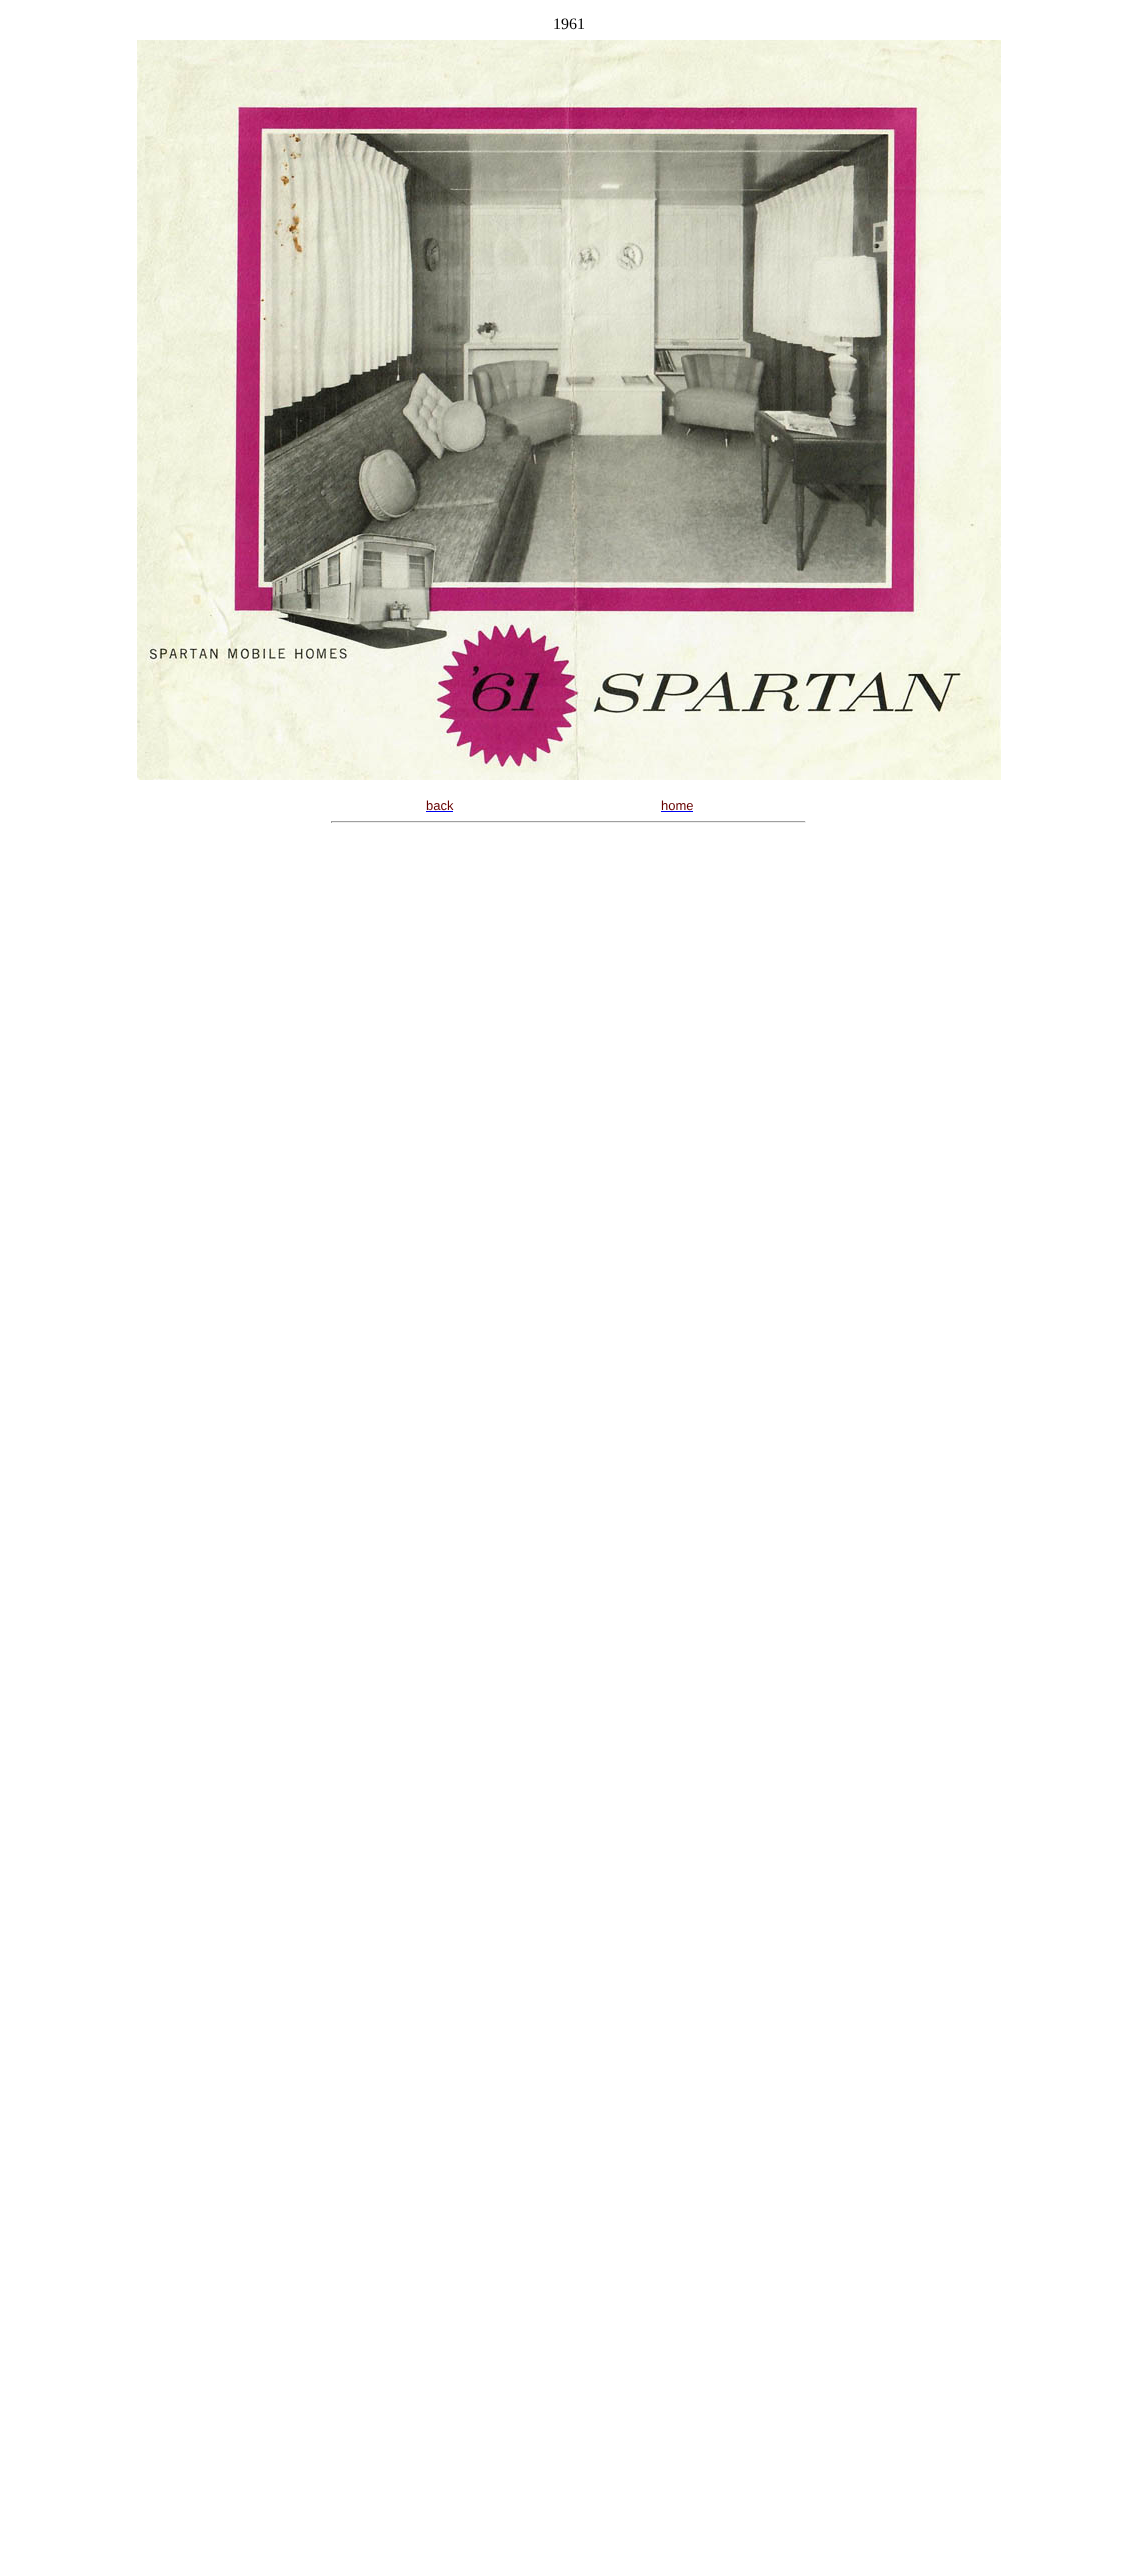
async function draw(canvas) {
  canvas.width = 1137
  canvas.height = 2563
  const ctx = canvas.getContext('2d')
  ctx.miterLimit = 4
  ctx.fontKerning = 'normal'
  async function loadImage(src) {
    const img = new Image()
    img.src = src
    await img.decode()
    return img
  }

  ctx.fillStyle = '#fff'
  ctx.fillRect(0, 0, 1137, 2563)
  ctx.font = '16px Liberation Serif'
  ctx.fillStyle = '#000'
  ctx.fillText('1961', 553, 29)
  ctx.drawImage(await loadImage('image0.png'), 137, 40, 864, 740)
  ctx.font = '13px Liberation Sans'
  ctx.fillStyle = '#600'
  ctx.fillText('back', 426, 810)
  ctx.fillStyle = '#00e'
  ctx.fillRect(426, 811, 27, 1)
  ctx.fillStyle = '#600'
  ctx.fillText('home', 661, 810)
  ctx.fillStyle = '#00e'
  ctx.fillRect(661, 811, 32, 1)
  ctx.fillStyle = '#9f9f9f'
  ctx.fillRect(331, 821, 475, 1)
  ctx.fillStyle = '#eee'
  ctx.fillRect(805, 821, 1, 2)
  ctx.fillRect(331, 822, 475, 1)
  ctx.fillStyle = '#9f9f9f'
  ctx.fillRect(331, 821, 1, 2)
}

draw(document.querySelector('canvas'))
